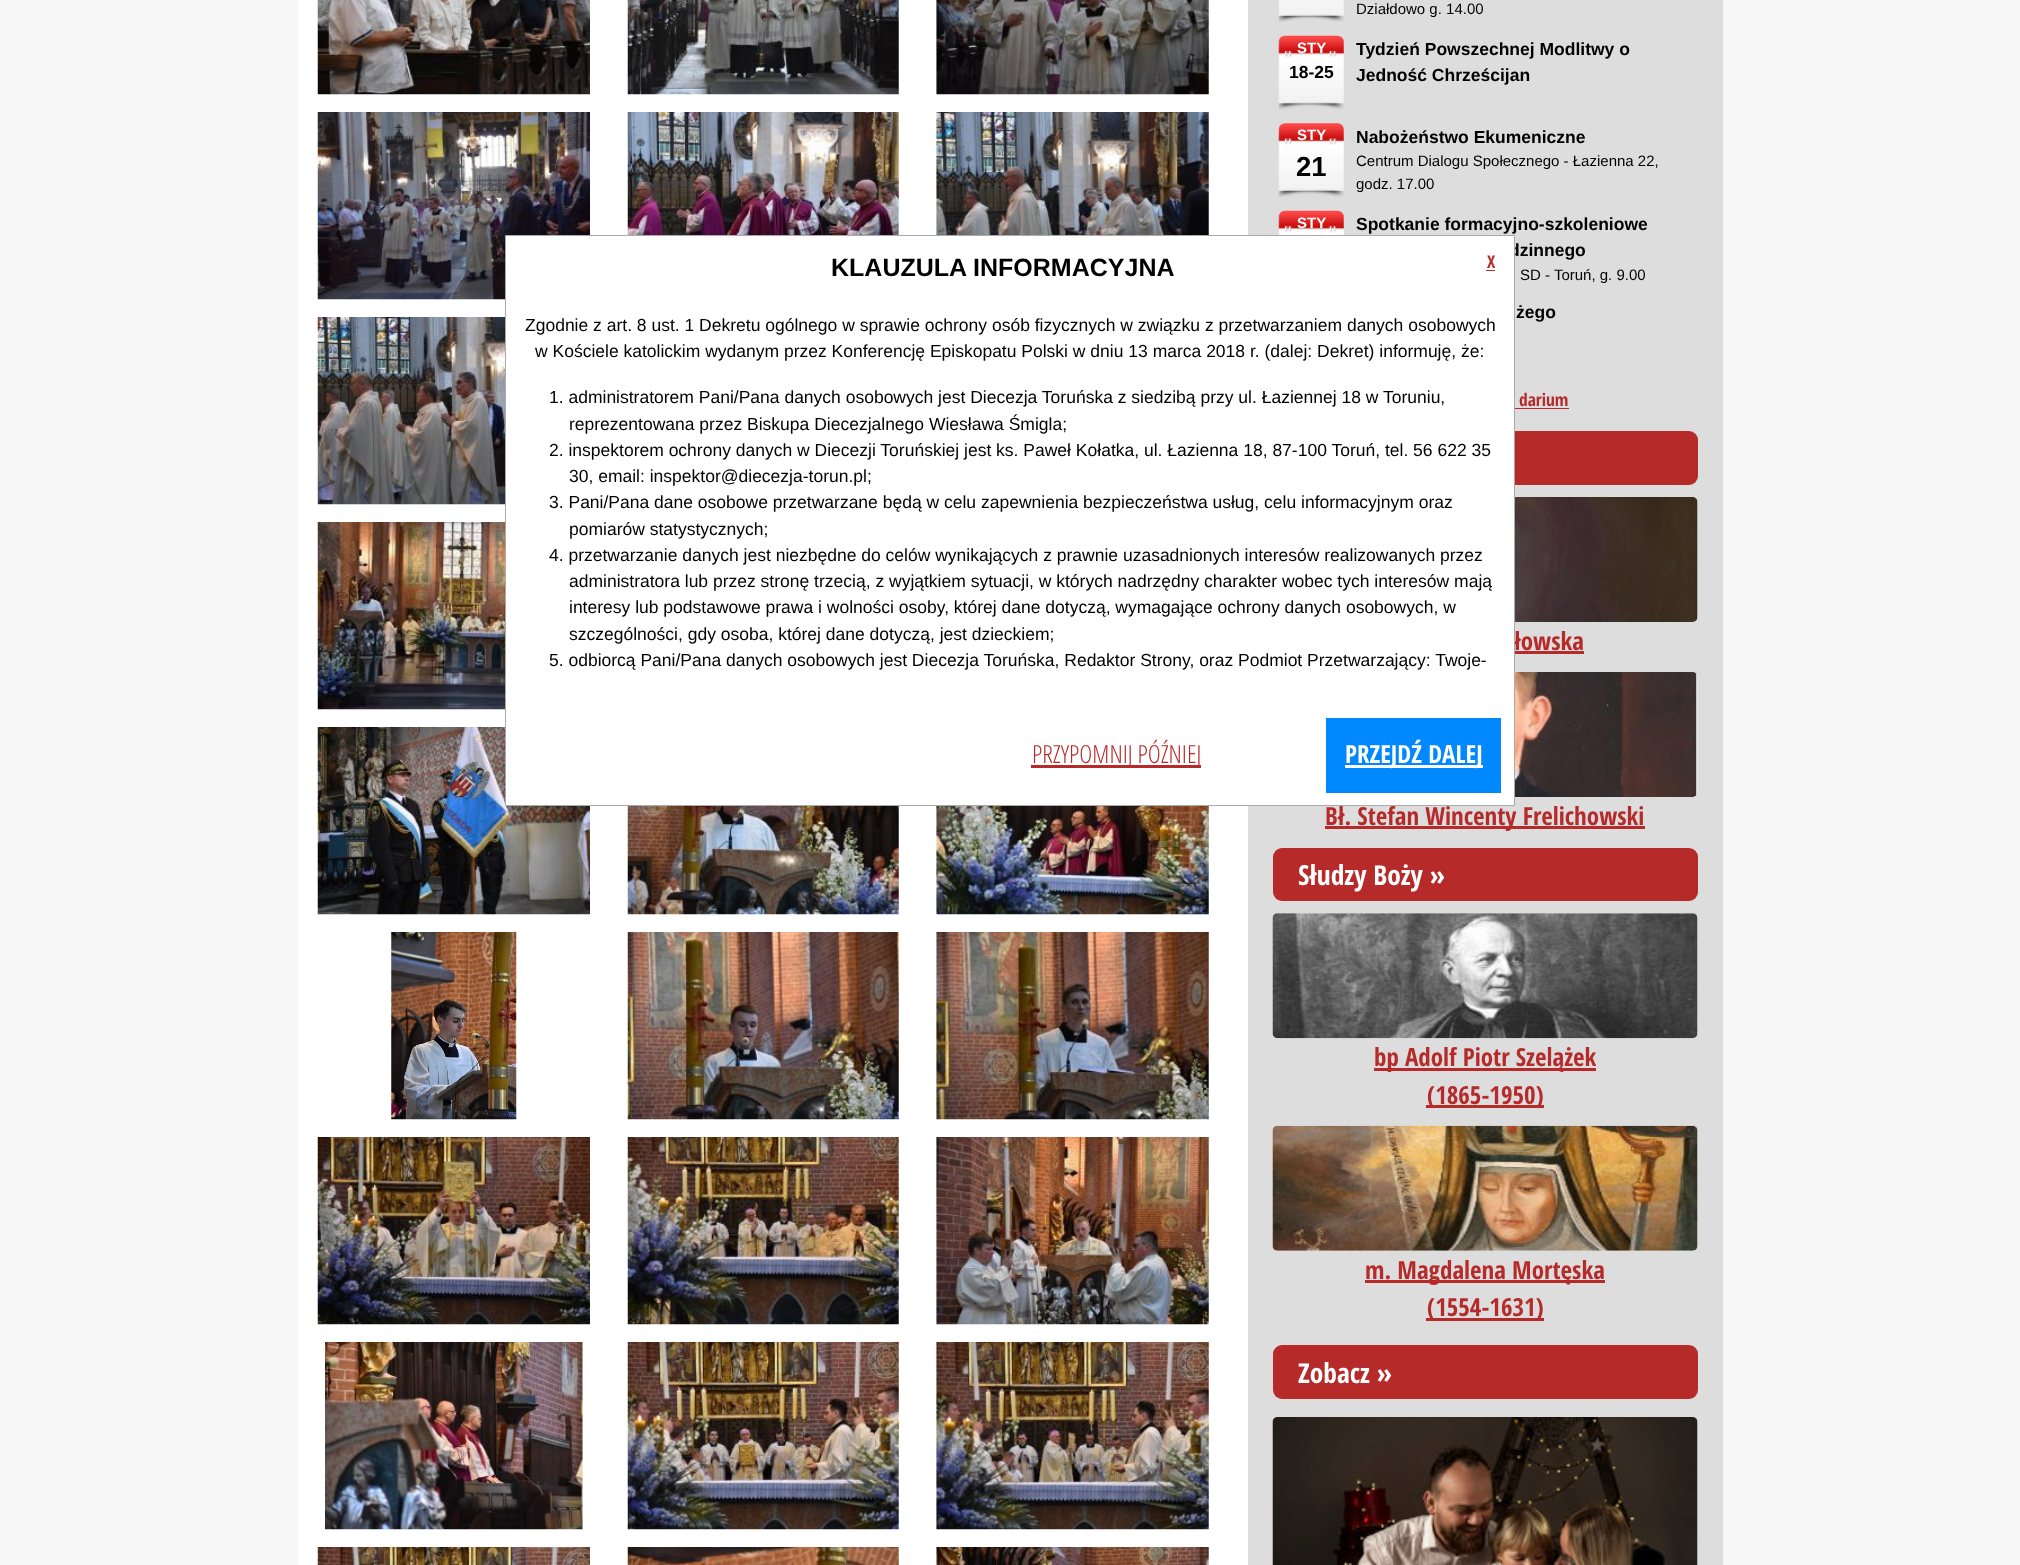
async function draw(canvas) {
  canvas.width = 2020
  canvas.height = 1565
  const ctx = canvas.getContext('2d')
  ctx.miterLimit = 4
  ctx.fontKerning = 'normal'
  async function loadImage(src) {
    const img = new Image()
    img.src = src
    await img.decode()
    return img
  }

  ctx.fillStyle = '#f7f7f7'
  ctx.fillRect(0, 0, 2020, 1565)
  ctx.fillStyle = '#fff'
  ctx.fillRect(298, 0, 950, 1565)
  ctx.drawImage(await loadImage('image0.png'), 317, 0, 273, 95)
  ctx.drawImage(await loadImage('image1.png'), 627, 0, 272, 95)
  ctx.drawImage(await loadImage('image2.png'), 936, 0, 273, 95)
  ctx.drawImage(await loadImage('image3.png'), 317, 112, 273, 188)
  ctx.drawImage(await loadImage('image4.png'), 627, 112, 272, 123)
  ctx.drawImage(await loadImage('image5.png'), 936, 112, 273, 123)
  ctx.drawImage(await loadImage('image6.png'), 317, 317, 188, 188)
  ctx.drawImage(await loadImage('image7.png'), 317, 522, 188, 188)
  ctx.drawImage(await loadImage('image8.png'), 317, 727, 273, 188)
  ctx.drawImage(await loadImage('image9.png'), 627, 806, 272, 109)
  ctx.drawImage(await loadImage('image10.png'), 936, 806, 273, 109)
  ctx.drawImage(await loadImage('image11.png'), 391, 932, 126, 188)
  ctx.drawImage(await loadImage('image12.png'), 627, 932, 272, 188)
  ctx.drawImage(await loadImage('image13.png'), 936, 932, 273, 188)
  ctx.drawImage(await loadImage('image14.png'), 317, 1137, 273, 188)
  ctx.drawImage(await loadImage('image15.png'), 627, 1137, 272, 188)
  ctx.drawImage(await loadImage('image16.png'), 936, 1137, 273, 188)
  ctx.drawImage(await loadImage('image17.png'), 325, 1342, 258, 188)
  ctx.drawImage(await loadImage('image18.png'), 627, 1342, 272, 188)
  ctx.drawImage(await loadImage('image19.png'), 936, 1342, 273, 188)
  ctx.drawImage(await loadImage('image20.png'), 317, 1547, 273, 18)
  ctx.drawImage(await loadImage('image21.png'), 627, 1547, 272, 18)
  ctx.drawImage(await loadImage('image22.png'), 936, 1547, 273, 18)
  ctx.fillStyle = '#ddd'
  ctx.fillRect(1248, 0, 475, 1565)
  ctx.drawImage(await loadImage('image23.png'), 1278, 0, 66, 22)
  ctx.font = '15px Liberation Sans'
  ctx.fillStyle = '#000'
  ctx.fillText('Działdowo g. 14.00', 1356, 14)
  ctx.drawImage(await loadImage('image24.png'), 1278, 35, 66, 75)
  ctx.font = 'bold 15px Liberation Sans'
  ctx.fillStyle = '#fff'
  ctx.fillText('STY', 1297, 53)
  ctx.font = 'bold 17.5px Liberation Sans'
  ctx.fillStyle = '#000'
  ctx.fillText('18-25', 1289, 78)
  ctx.fillText('Tydzień Powszechnej Modlitwy o', 1356, 55)
  ctx.fillText('Jedność Chrześcijan', 1356, 81)
  ctx.drawImage(await loadImage('image25.png'), 1278, 123, 66, 74)
  ctx.font = 'bold 15px Liberation Sans'
  ctx.fillStyle = '#fff'
  ctx.fillText('STY', 1297, 140)
  ctx.font = 'bold 27.5px Liberation Sans'
  ctx.fillStyle = '#000'
  ctx.fillText('21', 1296, 176)
  ctx.font = 'bold 17.5px Liberation Sans'
  ctx.fillText('Nabożeństwo Ekumeniczne', 1356, 143)
  ctx.font = '15px Liberation Sans'
  ctx.fillText('Centrum Dialogu Społecznego - Łazienna 22,', 1356, 166)
  ctx.fillText('godz. 17.00', 1356, 189)
  ctx.drawImage(await loadImage('image26.png'), 1278, 210, 66, 25)
  ctx.font = 'bold 15px Liberation Sans'
  ctx.fillStyle = '#fff'
  ctx.fillText('STY', 1297, 228)
  ctx.font = 'bold 17.5px Liberation Sans'
  ctx.fillStyle = '#000'
  ctx.fillText('Spotkanie formacyjno-szkoleniowe', 1356, 230)
  ctx.fillText('dzinnego', 1509, 256)
  ctx.font = '15px Liberation Sans'
  ctx.fillText('SD - Toruń, g. 9.00', 1520, 280)
  ctx.font = 'bold 17.5px Liberation Sans'
  ctx.fillText('żego', 1516, 318)
  ctx.font = 'bold 17.5px Open Sans Condensed'
  ctx.fillStyle = '#b72a2a'
  ctx.fillText('darium', 1519, 406)
  ctx.fillRect(1515, 408, 54, 1)
  ctx.beginPath()
  ctx.roundRect(1273, 431, 425, 54, 9)
  ctx.fill()
  ctx.drawImage(await loadImage('image27.png'), 1515, 497, 183, 125)
  ctx.font = 'bold 25px Open Sans Condensed'
  ctx.fillText('łowska', 1514, 650)
  ctx.fillRect(1515, 651, 69, 3)
  ctx.drawImage(await loadImage('image28.png'), 1515, 672, 183, 125)
  ctx.fillRect(1325, 826, 320, 3)
  ctx.fillText('Bł. Stefan Wincenty Frelichowski', 1325, 825)
  ctx.beginPath()
  ctx.roundRect(1273, 848, 425, 53, 9)
  ctx.fill()
  ctx.font = 'bold 27.5px Open Sans Condensed'
  ctx.fillStyle = '#fff'
  ctx.fillText('Słudzy Boży »', 1298, 885)
  ctx.drawImage(await loadImage('image29.png'), 1272, 913, 426, 126)
  ctx.fillStyle = '#b72a2a'
  ctx.fillRect(1374, 1068, 222, 3)
  ctx.font = 'bold 25px Open Sans Condensed'
  ctx.fillText('bp Adolf Piotr Szelążek', 1374, 1066)
  ctx.fillRect(1426, 1105, 118, 3)
  ctx.fillText('(1865-1950)', 1427, 1104)
  ctx.drawImage(await loadImage('image30.png'), 1272, 1125, 426, 126)
  ctx.fillRect(1365, 1280, 240, 3)
  ctx.fillText('m. Magdalena Mortęska', 1365, 1279)
  ctx.fillRect(1426, 1318, 118, 3)
  ctx.fillText('(1554-1631)', 1427, 1316)
  ctx.beginPath()
  ctx.roundRect(1273, 1345, 425, 54, 9)
  ctx.fill()
  ctx.font = 'bold 27.5px Open Sans Condensed'
  ctx.fillStyle = '#fff'
  ctx.fillText('Zobacz »', 1298, 1383)
  ctx.drawImage(await loadImage('image31.png'), 1272, 1417, 426, 148)
  ctx.beginPath()
  ctx.rect(505.5, 235.5, 1009, 570)
  ctx.fill()
  ctx.strokeStyle = '#aaa'
  ctx.stroke()
  ctx.font = 'bold 25px Liberation Sans'
  ctx.fillStyle = '#000'
  ctx.fillText('KLAUZULA INFORMACYJNA', 831, 276)
  ctx.font = 'bold 17.5px Open Sans Condensed'
  ctx.fillStyle = '#b72a2a'
  ctx.fillText('X', 1487, 268)
  ctx.fillRect(1486, 270, 9, 1)
  ctx.font = '17.5px Liberation Sans'
  ctx.fillStyle = '#000'
  ctx.fillText('Zgodnie z art. 8 ust. 1 Dekretu ogólnego w sprawie ochrony osób fizycznych w związku z przetwarzaniem danych osobowych', 525, 331)
  ctx.fillText('w Kościele katolickim wydanym przez Konferencję Episkopatu Polski w dniu 13 marca 2018 r. (dalej: Dekret) informuję, że:', 535, 357)
  ctx.fillText('1. administratorem Pani/Pana danych osobowych jest Diecezja Toruńska z siedzibą przy ul. Łaziennej 18 w Toruniu,', 549, 403)
  ctx.fillText('reprezentowana przez Biskupa Diecezjalnego Wiesława Śmigla;', 569, 430)
  ctx.fillText('2. inspektorem ochrony danych w Diecezji Toruńskiej jest ks. Paweł Kołatka, ul. Łazienna 18, 87-100 Toruń, tel. 56 622 35', 549, 456)
  ctx.fillText('30, email: inspektor@diecezja-torun.pl;', 569, 482)
  ctx.fillText('3. Pani/Pana dane osobowe przetwarzane będą w celu zapewnienia bezpieczeństwa usług, celu informacyjnym oraz', 549, 508)
  ctx.fillText('pomiarów statystycznych;', 569, 535)
  ctx.fillText('4. przetwarzanie danych jest niezbędne do celów wynikających z prawnie uzasadnionych interesów realizowanych przez', 549, 561)
  ctx.fillText('administratora lub przez stronę trzecią, z wyjątkiem sytuacji, w których nadrzędny charakter wobec tych interesów mają', 569, 587)
  ctx.fillText('interesy lub podstawowe prawa i wolności osoby, której dane dotyczą, wymagające ochrony danych osobowych, w', 569, 613)
  ctx.fillText('szczególności, gdy osoba, której dane dotyczą, jest dzieckiem;', 569, 640)
  ctx.fillText('5. odbiorcą Pani/Pana danych osobowych jest Diecezja Toruńska, Redaktor Strony, oraz Podmiot Przetwarzający: Twoje-', 549, 666)
  ctx.fillStyle = '#b72a2a'
  ctx.fillRect(1031, 765, 170, 3)
  ctx.font = '300 25px Open Sans Condensed'
  ctx.fillText('PRZYPOMNIJ PÓŹNIEJ', 1032, 763)
  ctx.fillStyle = '#08f'
  ctx.fillRect(1326, 718, 175, 75)
  ctx.fillStyle = '#fff'
  ctx.fillRect(1345, 765, 138, 3)
  ctx.font = 'bold 25px Open Sans Condensed'
  ctx.fillText('PRZEJDŹ DALEJ', 1345, 763)
}

draw(document.querySelector('canvas'))
